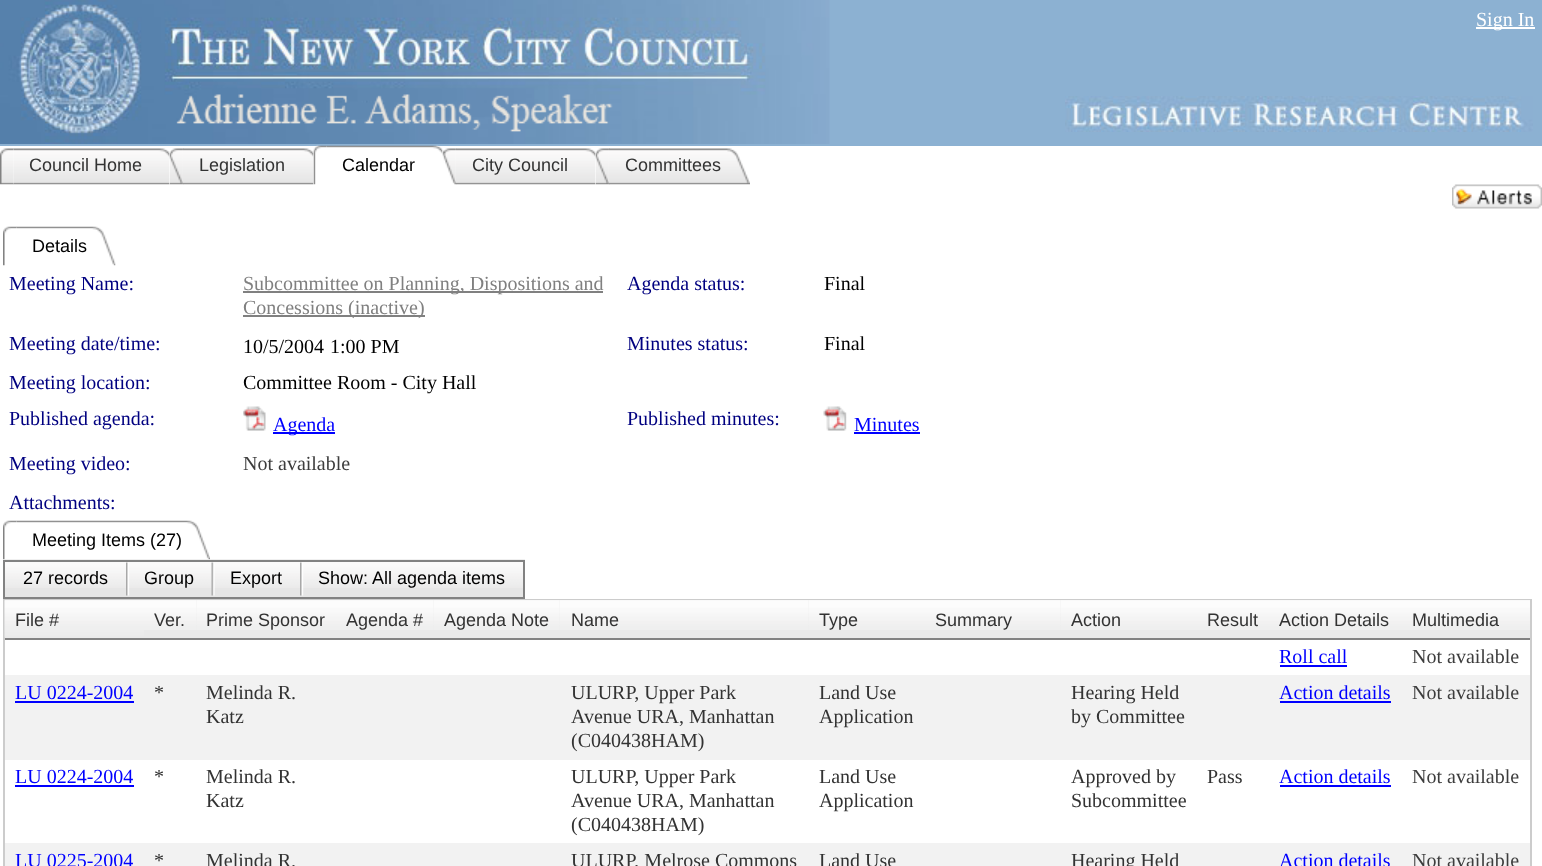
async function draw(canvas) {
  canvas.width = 1542
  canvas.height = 866
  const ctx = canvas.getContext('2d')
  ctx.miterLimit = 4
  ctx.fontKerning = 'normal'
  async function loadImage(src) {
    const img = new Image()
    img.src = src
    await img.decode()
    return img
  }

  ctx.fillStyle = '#fff'
  ctx.fillRect(0, 0, 1542, 866)
  ctx.fillStyle = '#8cb1d2'
  ctx.fillRect(0, 0, 1542, 146)
  ctx.drawImage(await loadImage('image0.png'), 0, 0, 830, 144)
  ctx.drawImage(await loadImage('image1.png'), 1065, 96, 468, 36)
  ctx.fillStyle = '#fff'
  ctx.fillRect(1476, 27, 59, 2)
  ctx.font = '20px Liberation Serif'
  ctx.fillText('Sign In', 1476, 26)
  ctx.drawImage(await loadImage('image2.png'), 0, 148, 14, 37)
  ctx.drawImage(await loadImage('image3.png'), 13, 148, 157, 37)
  ctx.font = '18px Liberation Sans'
  ctx.fillStyle = '#333'
  ctx.fillText('Council Home', 29, 171)
  ctx.drawImage(await loadImage('image4.png'), 169, 148, 15, 37)
  ctx.drawImage(await loadImage('image5.png'), 183, 148, 131, 37)
  ctx.fillText('Legislation', 199, 171)
  ctx.drawImage(await loadImage('image6.png'), 313, 145, 15, 40)
  ctx.drawImage(await loadImage('image7.png'), 327, 145, 116, 9)
  ctx.fillStyle = '#000'
  ctx.fillText('Calendar', 342, 171)
  ctx.drawImage(await loadImage('image8.png'), 442, 148, 15, 37)
  ctx.drawImage(await loadImage('image9.png'), 456, 148, 140, 37)
  ctx.fillStyle = '#333'
  ctx.fillText('City Council', 472, 171)
  ctx.drawImage(await loadImage('image10.png'), 595, 148, 15, 37)
  ctx.drawImage(await loadImage('image11.png'), 609, 148, 141, 37)
  ctx.fillText('Committees', 625, 171)
  ctx.drawImage(await loadImage('image12.png'), 1452, 184, 90, 25)
  ctx.drawImage(await loadImage('image13.png'), 3, 226, 14, 40)
  ctx.drawImage(await loadImage('image14.png'), 16, 226, 100, 40)
  ctx.fillStyle = '#000'
  ctx.fillText('Details', 32, 252)
  ctx.font = '20px Liberation Serif'
  ctx.fillStyle = '#000080'
  ctx.fillText('Meeting Name:', 9, 290)
  ctx.fillStyle = '#808080'
  ctx.fillRect(243, 291, 360, 2)
  ctx.fillText('Subcommittee on Planning, Dispositions and', 243, 290)
  ctx.fillRect(243, 315, 182, 2)
  ctx.fillText('Concessions (inactive)', 243, 314)
  ctx.fillStyle = '#000080'
  ctx.fillText('Agenda status:', 627, 290)
  ctx.fillStyle = '#000'
  ctx.fillText('Final', 824, 290)
  ctx.fillStyle = '#000080'
  ctx.fillText('Meeting date/time:', 9, 350)
  ctx.fillStyle = '#000'
  ctx.fillText('10/5/2004', 243, 353)
  ctx.fillText('1:00 PM', 330, 353)
  ctx.fillStyle = '#000080'
  ctx.fillText('Minutes status:', 627, 350)
  ctx.fillStyle = '#000'
  ctx.fillText('Final', 824, 350)
  ctx.fillStyle = '#000080'
  ctx.fillText('Meeting location:', 9, 389)
  ctx.fillStyle = '#000'
  ctx.fillText('Committee Room - City Hall', 243, 389)
  ctx.fillStyle = '#000080'
  ctx.fillText('Published agenda:', 9, 425)
  ctx.drawImage(await loadImage('image15.png'), 243, 406, 23, 25)
  ctx.fillStyle = '#00f'
  ctx.fillRect(273, 432, 62, 2)
  ctx.fillText('Agenda', 273, 431)
  ctx.fillStyle = '#000080'
  ctx.fillText('Published minutes:', 627, 425)
  ctx.drawImage(await loadImage('image16.png'), 823, 406, 24, 25)
  ctx.fillStyle = '#00f'
  ctx.fillText('Minutes', 854, 431)
  ctx.fillRect(854, 432, 66, 2)
  ctx.fillStyle = '#000080'
  ctx.fillText('Meeting video:', 9, 470)
  ctx.fillStyle = '#3d3d3d'
  ctx.fillText('Not available', 243, 470)
  ctx.fillStyle = '#000080'
  ctx.fillText('Attachments:', 9, 509)
  ctx.drawImage(await loadImage('image17.png'), 3, 520, 14, 40)
  ctx.drawImage(await loadImage('image18.png'), 16, 520, 194, 40)
  ctx.font = '18px Liberation Sans'
  ctx.fillStyle = '#000'
  ctx.fillText('Meeting Items (27)', 32, 546)
  ctx.fillStyle = '#e6e6e6'
  ctx.fillRect(5, 588, 518, 9)
  ctx.drawImage(await loadImage('image19.png'), 3, 559, 522, 29)
  ctx.strokeStyle = '#828282'
  ctx.lineWidth = 2
  ctx.strokeRect(4, 561, 520, 37)
  ctx.fillStyle = '#000'
  ctx.fillText('27 records', 23, 584)
  ctx.drawImage(await loadImage('image20.png'), 126, 562, 4, 34)
  ctx.fillText('Group', 144, 584)
  ctx.drawImage(await loadImage('image21.png'), 211, 562, 4, 34)
  ctx.fillText('Export', 230, 584)
  ctx.drawImage(await loadImage('image22.png'), 300, 562, 4, 34)
  ctx.fillText('Show: All agenda items', 318, 584)
  ctx.strokeStyle = '#ccc'
  ctx.strokeRect(4, 600, 1527, 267)
  ctx.fillStyle = '#eaeaea'
  ctx.fillRect(5, 600, 1525, 38)
  ctx.drawImage(await loadImage('image23.png'), 4, 600, 140, 38)
  ctx.fillStyle = '#828282'
  ctx.fillRect(5, 638, 1525, 2)
  ctx.fillStyle = '#333'
  ctx.fillText('File #', 15, 626)
  ctx.drawImage(await loadImage('image24.png'), 144, 600, 53, 30)
  ctx.fillText('Ver.', 154, 626)
  ctx.drawImage(await loadImage('image25.png'), 196, 600, 140, 30)
  ctx.fillText('Prime Sponsor', 206, 626)
  ctx.drawImage(await loadImage('image26.png'), 336, 600, 98, 30)
  ctx.fillText('Agenda #', 346, 626)
  ctx.drawImage(await loadImage('image27.png'), 433, 600, 127, 30)
  ctx.fillText('Agenda Note', 444, 626)
  ctx.drawImage(await loadImage('image28.png'), 559, 600, 250, 30)
  ctx.fillText('Name', 571, 626)
  ctx.drawImage(await loadImage('image29.png'), 808, 600, 116, 30)
  ctx.fillText('Type', 819, 626)
  ctx.drawImage(await loadImage('image30.png'), 924, 600, 137, 30)
  ctx.fillText('Summary', 935, 626)
  ctx.drawImage(await loadImage('image31.png'), 1060, 600, 137, 30)
  ctx.fillText('Action', 1071, 626)
  ctx.drawImage(await loadImage('image32.png'), 1197, 600, 72, 30)
  ctx.fillText('Result', 1207, 626)
  ctx.drawImage(await loadImage('image33.png'), 1269, 600, 132, 30)
  ctx.fillText('Action Details', 1279, 626)
  ctx.drawImage(await loadImage('image34.png'), 1401, 600, 129, 30)
  ctx.fillText('Multimedia', 1412, 626)
  ctx.font = '20px Liberation Serif'
  ctx.fillStyle = '#00f'
  ctx.fillText('Roll call', 1279, 663)
  ctx.fillRect(1280, 665, 67, 2)
  ctx.fillStyle = '#3d3d3d'
  ctx.fillText('Not available', 1412, 663)
  ctx.fillStyle = '#f2f2f2'
  ctx.fillRect(5, 675, 1525, 83)
  ctx.fillRect(5, 758, 1525, 2)
  ctx.fillStyle = '#00f'
  ctx.fillText('LU 0224-2004', 15, 699)
  ctx.fillRect(15, 701, 119, 2)
  ctx.fillStyle = '#333'
  ctx.fillText('*', 154, 699)
  ctx.fillText('Melinda R.', 206, 699)
  ctx.fillText('Katz', 206, 723)
  ctx.fillText('ULURP, Upper Park', 571, 699)
  ctx.fillText('Avenue URA, Manhattan', 571, 723)
  ctx.fillText('(C040438HAM)', 571, 747)
  ctx.fillText('Land Use', 819, 699)
  ctx.fillText('Application', 819, 723)
  ctx.fillText('Hearing Held', 1071, 699)
  ctx.fillText('by Committee', 1071, 723)
  ctx.fillStyle = '#00f'
  ctx.fillText('Action details', 1279, 699)
  ctx.fillRect(1280, 701, 111, 2)
  ctx.fillStyle = '#3d3d3d'
  ctx.fillText('Not available', 1412, 699)
  ctx.fillStyle = '#00f'
  ctx.fillText('LU 0224-2004', 15, 783)
  ctx.fillRect(15, 785, 119, 2)
  ctx.fillStyle = '#333'
  ctx.fillText('*', 154, 783)
  ctx.fillText('Melinda R.', 206, 783)
  ctx.fillText('Katz', 206, 807)
  ctx.fillText('ULURP, Upper Park', 571, 783)
  ctx.fillText('Avenue URA, Manhattan', 571, 807)
  ctx.fillText('(C040438HAM)', 571, 831)
  ctx.fillText('Land Use', 819, 783)
  ctx.fillText('Application', 819, 807)
  ctx.fillText('Approved by', 1071, 783)
  ctx.fillText('Subcommittee', 1071, 807)
  ctx.fillText('Pass', 1207, 783)
  ctx.fillStyle = '#00f'
  ctx.fillText('Action details', 1279, 783)
  ctx.fillRect(1280, 785, 111, 2)
  ctx.fillStyle = '#3d3d3d'
  ctx.fillText('Not available', 1412, 783)
  ctx.fillStyle = '#f2f2f2'
  ctx.fillRect(5, 843, 1525, 23)
  ctx.fillStyle = '#00f'
  ctx.fillText('LU 0225-2004', 15, 867)
  ctx.fillStyle = '#333'
  ctx.fillText('*', 154, 867)
  ctx.fillText('Melinda R.', 206, 867)
  ctx.fillText('ULURP, Melrose Commons', 571, 867)
  ctx.fillText('Land Use', 819, 867)
  ctx.fillText('Hearing Held', 1071, 867)
  ctx.fillStyle = '#00f'
  ctx.fillText('Action details', 1279, 867)
  ctx.fillStyle = '#3d3d3d'
  ctx.fillText('Not available', 1412, 867)
}

draw(document.querySelector('canvas'))
